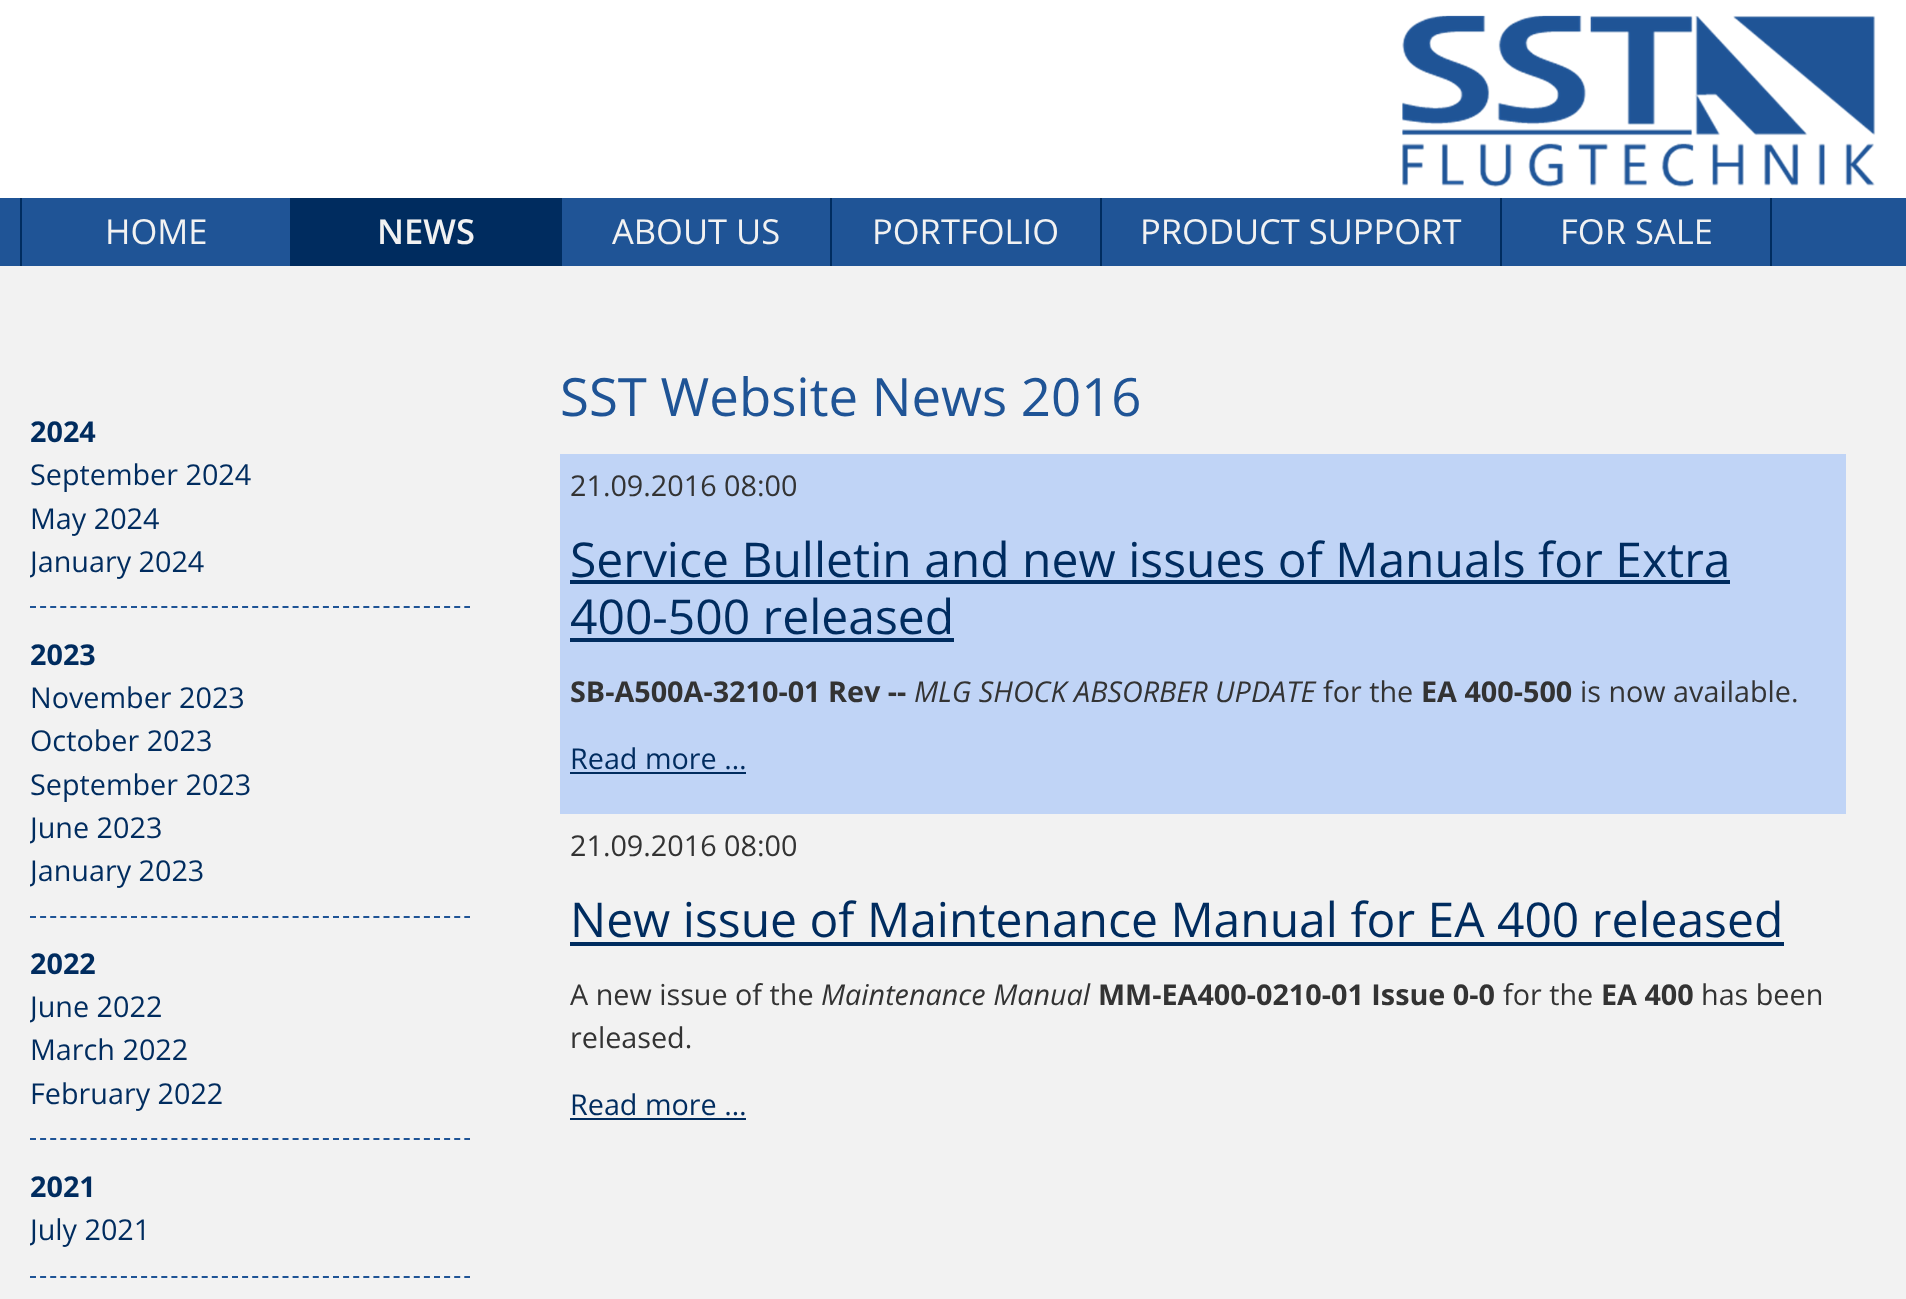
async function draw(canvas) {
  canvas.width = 1906
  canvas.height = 1299
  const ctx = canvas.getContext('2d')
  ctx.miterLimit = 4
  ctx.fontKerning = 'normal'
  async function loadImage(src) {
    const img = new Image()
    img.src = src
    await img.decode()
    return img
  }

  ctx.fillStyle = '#fff'
  ctx.fillRect(0, 0, 1906, 1299)
  ctx.fillStyle = '#1f5496'
  ctx.fillRect(0, 198, 1906, 68)
  ctx.drawImage(await loadImage('image0.png'), 1402, 15, 474, 172)
  ctx.fillStyle = '#002c5f'
  ctx.fillRect(20, 198, 2, 70)
  ctx.fillRect(290, 198, 2, 70)
  ctx.font = '34.5px Open Sans'
  ctx.fillStyle = '#f2f2f2'
  ctx.fillText('HOME', 105, 244)
  ctx.fillStyle = '#002c5f'
  ctx.fillRect(292, 198, 270, 68)
  ctx.font = '600 34.5px Open Sans'
  ctx.fillStyle = '#f2f2f2'
  ctx.fillText('NEWS', 377, 244)
  ctx.fillStyle = '#002c5f'
  ctx.fillRect(830, 198, 2, 70)
  ctx.font = '34.5px Open Sans'
  ctx.fillStyle = '#f2f2f2'
  ctx.fillText('ABOUT US', 612, 244)
  ctx.fillStyle = '#002c5f'
  ctx.fillRect(1100, 198, 2, 70)
  ctx.fillStyle = '#f2f2f2'
  ctx.fillText('PORTFOLIO', 872, 244)
  ctx.fillStyle = '#002c5f'
  ctx.fillRect(1500, 198, 2, 70)
  ctx.fillStyle = '#f2f2f2'
  ctx.fillText('PRODUCT SUPPORT', 1140, 244)
  ctx.fillStyle = '#002c5f'
  ctx.fillRect(1770, 198, 2, 70)
  ctx.fillStyle = '#f2f2f2'
  ctx.fillText('FOR SALE', 1560, 244)
  ctx.fillRect(0, 266, 1906, 1033)
  ctx.beginPath()
  ctx.moveTo(30, 607)
  ctx.lineTo(470, 607)
  ctx.strokeStyle = '#1f5496'
  ctx.lineWidth = 2
  ctx.setLineDash([6, 4.1])
  ctx.stroke()
  ctx.font = 'bold 28.75px Open Sans'
  ctx.fillStyle = '#002c5f'
  ctx.fillText('2024', 30, 442)
  ctx.font = '28.75px Open Sans'
  ctx.fillText('September 2024', 30, 485)
  ctx.fillText('May 2024', 30, 529)
  ctx.save()
  ctx.beginPath()
  ctx.rect(30, 386, 440, 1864)
  ctx.clip()
  ctx.fillText('January 2024', 30, 572)
  ctx.restore()
  ctx.beginPath()
  ctx.moveTo(30, 917)
  ctx.lineTo(470, 917)
  ctx.stroke()
  ctx.font = 'bold 28.75px Open Sans'
  ctx.fillText('2023', 30, 665)
  ctx.font = '28.75px Open Sans'
  ctx.fillText('November 2023', 30, 708)
  ctx.fillText('October 2023', 30, 751)
  ctx.fillText('September 2023', 30, 795)
  ctx.save()
  ctx.beginPath()
  ctx.rect(30, 386, 440, 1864)
  ctx.clip()
  ctx.fillText('June 2023', 30, 838)
  ctx.fillText('January 2023', 30, 881)
  ctx.restore()
  ctx.beginPath()
  ctx.moveTo(30, 1139)
  ctx.lineTo(470, 1139)
  ctx.stroke()
  ctx.font = 'bold 28.75px Open Sans'
  ctx.fillText('2022', 30, 974)
  ctx.save()
  ctx.beginPath()
  ctx.rect(30, 386, 440, 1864)
  ctx.clip()
  ctx.font = '28.75px Open Sans'
  ctx.fillText('June 2022', 30, 1017)
  ctx.restore()
  ctx.font = '28.75px Open Sans'
  ctx.fillText('March 2022', 30, 1060)
  ctx.fillText('February 2022', 30, 1104)
  ctx.beginPath()
  ctx.moveTo(30, 1277)
  ctx.lineTo(470, 1277)
  ctx.stroke()
  ctx.font = 'bold 28.75px Open Sans'
  ctx.fillText('2021', 30, 1197)
  ctx.save()
  ctx.beginPath()
  ctx.rect(30, 386, 440, 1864)
  ctx.clip()
  ctx.font = '28.75px Open Sans'
  ctx.fillText('July 2021', 30, 1240)
  ctx.restore()
  ctx.font = '52.75px Open Sans'
  ctx.fillStyle = '#1f5496'
  ctx.fillText('SST Website News 2016', 560, 416)
  ctx.fillStyle = '#c0d4f6'
  ctx.fillRect(560, 454, 1286, 360)
  ctx.font = '28.75px Open Sans'
  ctx.fillStyle = '#333'
  ctx.fillText('21.09.2016 08:00', 570, 496)
  ctx.font = '48px Open Sans'
  ctx.fillStyle = '#002c5f'
  ctx.fillText('Service Bulletin and new issues of Manuals for Extra', 570, 577)
  ctx.fillRect(570, 580, 1160, 4)
  ctx.fillText('400-500 released', 570, 634)
  ctx.fillRect(570, 638, 384, 4)
  ctx.font = 'bold 28.75px Open Sans'
  ctx.fillStyle = '#333'
  ctx.fillText('SB-A500A-3210-01 Rev --', 570, 702)
  ctx.font = 'italic 28.75px Open Sans'
  ctx.fillText('MLG SHOCK ABSORBER UPDATE', 914, 702)
  ctx.font = '28.75px Open Sans'
  ctx.fillText('for the', 1323, 702)
  ctx.font = 'bold 28.75px Open Sans'
  ctx.fillText('EA 400-500', 1421, 702)
  ctx.font = '28.75px Open Sans'
  ctx.fillText('is now available.', 1580, 702)
  ctx.fillStyle = '#002c5f'
  ctx.fillText('Read more …', 570, 769)
  ctx.fillRect(570, 772, 176, 2)
  ctx.fillStyle = '#333'
  ctx.fillText('21.09.2016 08:00', 570, 856)
  ctx.font = '48px Open Sans'
  ctx.fillStyle = '#002c5f'
  ctx.fillText('New issue of Maintenance Manual for EA 400 released', 570, 937)
  ctx.fillRect(570, 942, 1214, 4)
  ctx.font = '28.75px Open Sans'
  ctx.fillStyle = '#333'
  ctx.fillText('A new issue of the', 570, 1005)
  ctx.font = 'italic 28.75px Open Sans'
  ctx.fillText('Maintenance Manual', 821, 1005)
  ctx.font = 'bold 28.75px Open Sans'
  ctx.fillText('MM-EA400-0210-01 Issue 0-0', 1098, 1005)
  ctx.font = '28.75px Open Sans'
  ctx.fillText('for the', 1503, 1005)
  ctx.font = 'bold 28.75px Open Sans'
  ctx.fillText('EA 400', 1601, 1005)
  ctx.font = '28.75px Open Sans'
  ctx.fillText('has been', 1701, 1005)
  ctx.fillText('released.', 570, 1048)
  ctx.fillStyle = '#002c5f'
  ctx.fillText('Read more …', 570, 1115)
  ctx.fillRect(570, 1118, 176, 2)
}

draw(document.querySelector('canvas'))
